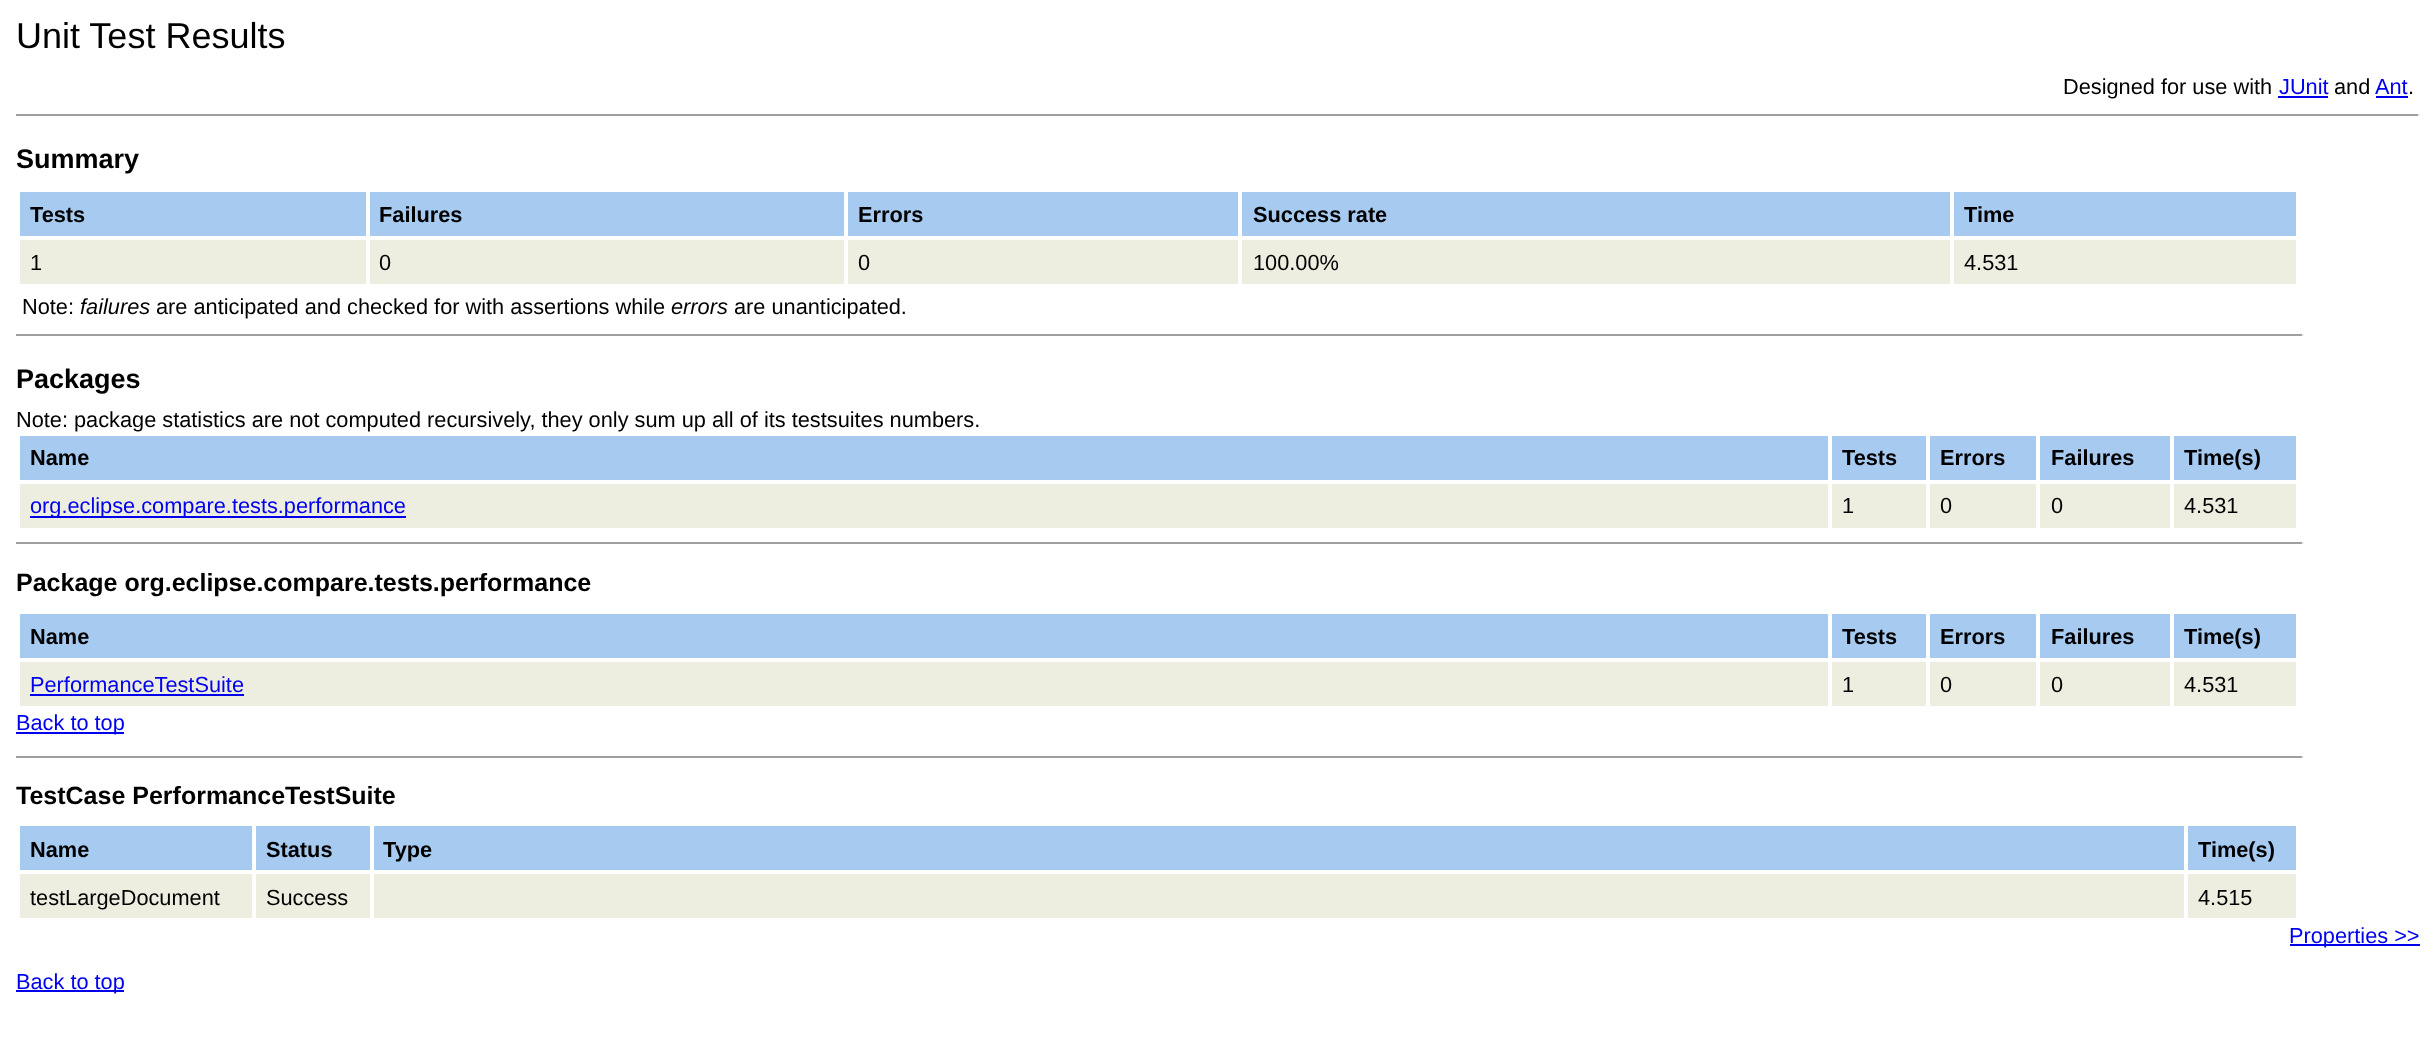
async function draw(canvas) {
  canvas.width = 2436
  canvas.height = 1064
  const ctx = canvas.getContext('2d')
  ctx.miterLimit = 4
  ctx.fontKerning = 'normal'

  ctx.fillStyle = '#fff'
  ctx.fillRect(0, 0, 2436, 1064)
  ctx.font = '36px Liberation Sans'
  ctx.fillStyle = '#000'
  ctx.fillText('Unit Test Results', 16, 48)
  ctx.font = '21.75px Liberation Sans'
  ctx.fillText('Designed for use with', 2063, 94)
  ctx.fillStyle = '#00e'
  ctx.fillText('JUnit', 2279, 94)
  ctx.fillRect(2278, 96, 50, 2)
  ctx.fillStyle = '#000'
  ctx.fillText('and', 2334, 94)
  ctx.fillStyle = '#00e'
  ctx.fillText('Ant', 2375, 94)
  ctx.fillRect(2376, 96, 32, 2)
  ctx.fillStyle = '#000'
  ctx.fillText('.', 2408, 94)
  ctx.fillStyle = '#9f9f9f'
  ctx.fillRect(16, 114, 2404, 2)
  ctx.fillStyle = '#eee'
  ctx.fillRect(2418, 114, 2, 2)
  ctx.font = 'bold 27px Liberation Sans'
  ctx.fillStyle = '#000'
  ctx.fillText('Summary', 16, 168)
  ctx.fillStyle = '#a6caf0'
  ctx.fillRect(20, 192, 346, 44)
  ctx.font = 'bold 21.75px Liberation Sans'
  ctx.fillStyle = '#000'
  ctx.fillText('Tests', 30, 222)
  ctx.fillStyle = '#a6caf0'
  ctx.fillRect(370, 192, 474, 44)
  ctx.fillStyle = '#000'
  ctx.fillText('Failures', 379, 222)
  ctx.fillStyle = '#a6caf0'
  ctx.fillRect(848, 192, 390, 44)
  ctx.fillStyle = '#000'
  ctx.fillText('Errors', 858, 222)
  ctx.fillStyle = '#a6caf0'
  ctx.fillRect(1242, 192, 708, 44)
  ctx.fillStyle = '#000'
  ctx.fillText('Success rate', 1253, 222)
  ctx.fillStyle = '#a6caf0'
  ctx.fillRect(1954, 192, 342, 44)
  ctx.fillStyle = '#000'
  ctx.fillText('Time', 1964, 222)
  ctx.fillStyle = '#eeeee0'
  ctx.fillRect(20, 240, 346, 44)
  ctx.font = '21.75px Liberation Sans'
  ctx.fillStyle = '#000'
  ctx.fillText('1', 30, 270)
  ctx.fillStyle = '#eeeee0'
  ctx.fillRect(370, 240, 474, 44)
  ctx.fillStyle = '#000'
  ctx.fillText('0', 379, 270)
  ctx.fillStyle = '#eeeee0'
  ctx.fillRect(848, 240, 390, 44)
  ctx.fillStyle = '#000'
  ctx.fillText('0', 858, 270)
  ctx.fillStyle = '#eeeee0'
  ctx.fillRect(1242, 240, 708, 44)
  ctx.fillStyle = '#000'
  ctx.fillText('100.00%', 1253, 270)
  ctx.fillStyle = '#eeeee0'
  ctx.fillRect(1954, 240, 342, 44)
  ctx.fillStyle = '#000'
  ctx.fillText('4.531', 1964, 270)
  ctx.fillText('Note:', 22, 314)
  ctx.font = 'italic 21.75px Liberation Sans'
  ctx.fillText('failures', 80, 314)
  ctx.font = '21.75px Liberation Sans'
  ctx.fillText('are anticipated and checked for with assertions while', 156, 314)
  ctx.font = 'italic 21.75px Liberation Sans'
  ctx.fillText('errors', 671, 314)
  ctx.font = '21.75px Liberation Sans'
  ctx.fillText('are unanticipated.', 734, 314)
  ctx.fillStyle = '#9f9f9f'
  ctx.fillRect(16, 334, 2288, 2)
  ctx.fillStyle = '#eee'
  ctx.fillRect(2302, 334, 2, 2)
  ctx.font = 'bold 27px Liberation Sans'
  ctx.fillStyle = '#000'
  ctx.fillText('Packages', 16, 388)
  ctx.font = '21.75px Liberation Sans'
  ctx.fillText('Note: package statistics are not computed recursively, they only sum up all of its testsuites numbers.', 16, 427)
  ctx.fillStyle = '#a6caf0'
  ctx.fillRect(20, 436, 1808, 44)
  ctx.font = 'bold 21.75px Liberation Sans'
  ctx.fillStyle = '#000'
  ctx.fillText('Name', 30, 465)
  ctx.fillStyle = '#a6caf0'
  ctx.fillRect(1832, 436, 94, 44)
  ctx.fillStyle = '#000'
  ctx.fillText('Tests', 1842, 465)
  ctx.fillStyle = '#a6caf0'
  ctx.fillRect(1930, 436, 106, 44)
  ctx.fillStyle = '#000'
  ctx.fillText('Errors', 1940, 465)
  ctx.fillStyle = '#a6caf0'
  ctx.fillRect(2040, 436, 130, 44)
  ctx.fillStyle = '#000'
  ctx.fillText('Failures', 2051, 465)
  ctx.fillStyle = '#a6caf0'
  ctx.fillRect(2174, 436, 122, 44)
  ctx.fillStyle = '#000'
  ctx.fillText('Time(s)', 2184, 465)
  ctx.fillStyle = '#eeeee0'
  ctx.fillRect(20, 484, 1808, 44)
  ctx.fillStyle = '#00e'
  ctx.fillRect(30, 516, 376, 2)
  ctx.font = '21.75px Liberation Sans'
  ctx.fillText('org.eclipse.compare.tests.performance', 30, 513)
  ctx.fillStyle = '#eeeee0'
  ctx.fillRect(1832, 484, 94, 44)
  ctx.fillStyle = '#000'
  ctx.fillText('1', 1842, 513)
  ctx.fillStyle = '#eeeee0'
  ctx.fillRect(1930, 484, 106, 44)
  ctx.fillStyle = '#000'
  ctx.fillText('0', 1940, 513)
  ctx.fillStyle = '#eeeee0'
  ctx.fillRect(2040, 484, 130, 44)
  ctx.fillStyle = '#000'
  ctx.fillText('0', 2051, 513)
  ctx.fillStyle = '#eeeee0'
  ctx.fillRect(2174, 484, 122, 44)
  ctx.fillStyle = '#000'
  ctx.fillText('4.531', 2184, 513)
  ctx.fillStyle = '#9f9f9f'
  ctx.fillRect(16, 542, 2288, 2)
  ctx.fillStyle = '#eee'
  ctx.fillRect(2302, 542, 2, 2)
  ctx.font = 'bold 25px Liberation Sans'
  ctx.fillStyle = '#000'
  ctx.fillText('Package org.eclipse.compare.tests.performance', 16, 591)
  ctx.fillStyle = '#a6caf0'
  ctx.fillRect(20, 614, 1808, 44)
  ctx.font = 'bold 21.75px Liberation Sans'
  ctx.fillStyle = '#000'
  ctx.fillText('Name', 30, 644)
  ctx.fillStyle = '#a6caf0'
  ctx.fillRect(1832, 614, 94, 44)
  ctx.fillStyle = '#000'
  ctx.fillText('Tests', 1842, 644)
  ctx.fillStyle = '#a6caf0'
  ctx.fillRect(1930, 614, 106, 44)
  ctx.fillStyle = '#000'
  ctx.fillText('Errors', 1940, 644)
  ctx.fillStyle = '#a6caf0'
  ctx.fillRect(2040, 614, 130, 44)
  ctx.fillStyle = '#000'
  ctx.fillText('Failures', 2051, 644)
  ctx.fillStyle = '#a6caf0'
  ctx.fillRect(2174, 614, 122, 44)
  ctx.fillStyle = '#000'
  ctx.fillText('Time(s)', 2184, 644)
  ctx.fillStyle = '#eeeee0'
  ctx.fillRect(20, 662, 1808, 44)
  ctx.font = '21.75px Liberation Sans'
  ctx.fillStyle = '#00e'
  ctx.fillText('PerformanceTestSuite', 30, 692)
  ctx.fillRect(30, 694, 214, 2)
  ctx.fillStyle = '#eeeee0'
  ctx.fillRect(1832, 662, 94, 44)
  ctx.fillStyle = '#000'
  ctx.fillText('1', 1842, 692)
  ctx.fillStyle = '#eeeee0'
  ctx.fillRect(1930, 662, 106, 44)
  ctx.fillStyle = '#000'
  ctx.fillText('0', 1940, 692)
  ctx.fillStyle = '#eeeee0'
  ctx.fillRect(2040, 662, 130, 44)
  ctx.fillStyle = '#000'
  ctx.fillText('0', 2051, 692)
  ctx.fillStyle = '#eeeee0'
  ctx.fillRect(2174, 662, 122, 44)
  ctx.fillStyle = '#000'
  ctx.fillText('4.531', 2184, 692)
  ctx.fillStyle = '#00e'
  ctx.fillRect(16, 732, 108, 2)
  ctx.fillText('Back to top', 16, 730)
  ctx.fillStyle = '#9f9f9f'
  ctx.fillRect(16, 756, 2288, 2)
  ctx.fillStyle = '#eee'
  ctx.fillRect(2302, 756, 2, 2)
  ctx.font = 'bold 25px Liberation Sans'
  ctx.fillStyle = '#000'
  ctx.fillText('TestCase PerformanceTestSuite', 16, 804)
  ctx.fillStyle = '#a6caf0'
  ctx.fillRect(20, 826, 232, 44)
  ctx.font = 'bold 21.75px Liberation Sans'
  ctx.fillStyle = '#000'
  ctx.fillText('Name', 30, 857)
  ctx.fillStyle = '#a6caf0'
  ctx.fillRect(256, 826, 114, 44)
  ctx.fillStyle = '#000'
  ctx.fillText('Status', 266, 857)
  ctx.fillStyle = '#a6caf0'
  ctx.fillRect(374, 826, 1810, 44)
  ctx.fillStyle = '#000'
  ctx.fillText('Type', 383, 857)
  ctx.fillStyle = '#a6caf0'
  ctx.fillRect(2188, 826, 108, 44)
  ctx.fillStyle = '#000'
  ctx.fillText('Time(s)', 2198, 857)
  ctx.fillStyle = '#eeeee0'
  ctx.fillRect(20, 874, 232, 44)
  ctx.font = '21.75px Liberation Sans'
  ctx.fillStyle = '#000'
  ctx.fillText('testLargeDocument', 30, 905)
  ctx.fillStyle = '#eeeee0'
  ctx.fillRect(256, 874, 114, 44)
  ctx.fillStyle = '#000'
  ctx.fillText('Success', 266, 905)
  ctx.fillStyle = '#eeeee0'
  ctx.fillRect(374, 874, 1810, 44)
  ctx.fillRect(2188, 874, 108, 44)
  ctx.fillStyle = '#000'
  ctx.fillText('4.515', 2198, 905)
  ctx.fillStyle = '#00e'
  ctx.fillRect(2290, 944, 130, 2)
  ctx.fillText('Properties >>', 2289, 943)
  ctx.fillRect(16, 990, 108, 2)
  ctx.fillText('Back to top', 16, 989)
}

draw(document.querySelector('canvas'))
